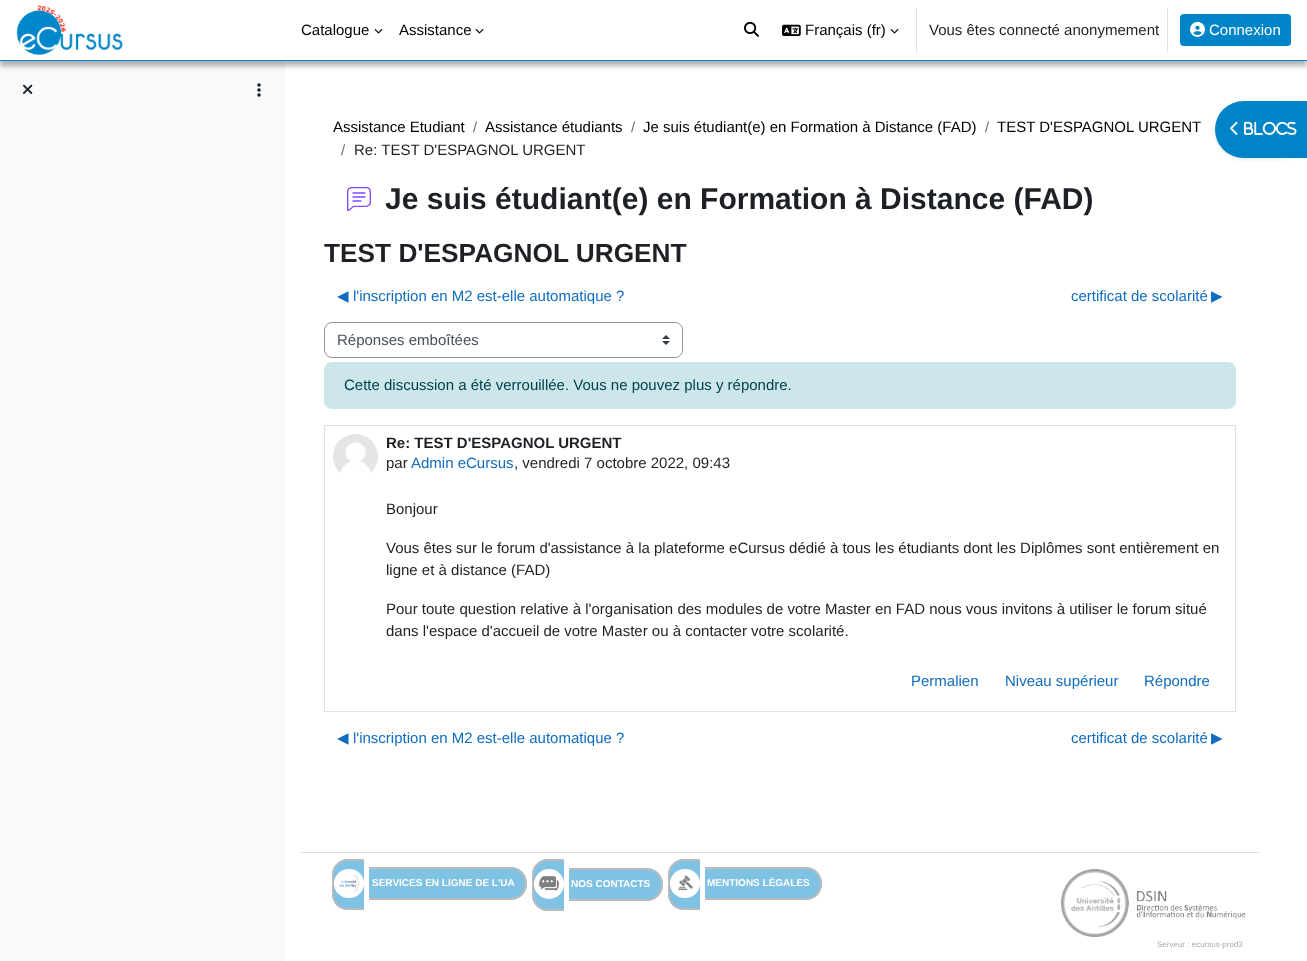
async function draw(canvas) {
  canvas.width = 1307
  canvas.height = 961
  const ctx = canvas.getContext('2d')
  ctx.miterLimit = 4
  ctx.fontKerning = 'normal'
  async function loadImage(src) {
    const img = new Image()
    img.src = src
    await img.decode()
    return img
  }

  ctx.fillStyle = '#fff'
  ctx.fillRect(0, 0, 1307, 961)
  ctx.fillStyle = '#f8f9fa'
  ctx.fillRect(0, 61, 285, 900)
  ctx.fillStyle = '#0000004d'
  ctx.filter = 'blur(2.5px)'
  ctx.beginPath()
  ctx.rect(0, 5, 1307, 61)
  ctx.fill()
  ctx.filter = 'none'
  ctx.fillStyle = '#fff'
  ctx.fillRect(0, 0, 1307, 60)
  ctx.fillStyle = '#0084c8'
  ctx.fillRect(0, 60, 1307, 1)
  ctx.drawImage(await loadImage('image0.png'), 16, 5, 107, 51)
  ctx.font = '15px Liberation Sans'
  ctx.fillStyle = '#000'
  ctx.fillText('Catalogue', 301, 35)
  ctx.drawImage(await loadImage('image1.png'), 374, 29, 9, 5)
  ctx.fillText('Assistance', 399, 35)
  ctx.drawImage(await loadImage('image1.png'), 475, 29, 9, 5)
  ctx.drawImage(await loadImage('image2.png'), 744, 21, 15, 16)
  ctx.drawImage(await loadImage('image3.png'), 782, 24, 19, 12)
  ctx.fillText('Français (fr)', 805, 35)
  ctx.drawImage(await loadImage('image1.png'), 890, 29, 9, 5)
  ctx.fillStyle = '#dee2e6'
  ctx.fillRect(916, 8, 1, 45)
  ctx.fillStyle = '#1d2125'
  ctx.fillText('Vous êtes connecté anonymement', 929, 35)
  ctx.fillStyle = '#dee2e6'
  ctx.fillRect(1167, 8, 1, 45)
  ctx.fillStyle = '#0084c8'
  ctx.beginPath()
  ctx.roundRect(1180, 14, 111, 32, 4)
  ctx.fill()
  ctx.drawImage(await loadImage('image4.png'), 1190, 21, 15, 16)
  ctx.fillStyle = '#fff'
  ctx.fillText('Connexion', 1209, 35)
  ctx.drawImage(await loadImage('image5.png'), 23, 84, 10, 10)
  ctx.drawImage(await loadImage('image6.png'), 257, 83, 4, 14)
  ctx.fillStyle = '#000'
  ctx.fillText('Assistance Etudiant', 333, 132)
  ctx.fillStyle = '#6a737b'
  ctx.fillText('/', 473, 132)
  ctx.fillStyle = '#000'
  ctx.fillText('Assistance étudiants', 485, 132)
  ctx.fillStyle = '#6a737b'
  ctx.fillText('/', 631, 132)
  ctx.fillStyle = '#000'
  ctx.fillText('Je suis étudiant(e) en Formation à Distance (FAD)', 643, 132)
  ctx.fillStyle = '#6a737b'
  ctx.fillText('/', 985, 132)
  ctx.fillStyle = '#000'
  ctx.fillText('TEST D\'ESPAGNOL URGENT', 997, 132)
  ctx.fillStyle = '#6a737b'
  ctx.fillText('/', 341, 155)
  ctx.fillStyle = '#1d2125'
  ctx.fillText('Re: TEST D\'ESPAGNOL URGENT', 354, 155)
  ctx.drawImage(await loadImage('image7.png'), 347, 187, 24, 24)
  ctx.font = 'bold 30px Liberation Sans'
  ctx.fillText('Je suis étudiant(e) en Formation à Distance (FAD)', 385, 209)
  ctx.fillStyle = '#00000012'
  ctx.filter = 'blur(2px)'
  ctx.beginPath()
  ctx.roundRect(1215, 103, 92, 57, 28.5)
  ctx.fill()
  ctx.filter = 'none'
  ctx.fillStyle = '#0084c8'
  ctx.beginPath()
  ctx.roundRect(1215, 101, 92, 57, [28.5, 0, 0, 28.5])
  ctx.fill()
  ctx.drawImage(await loadImage('image8.png'), 1230, 121, 8, 14)
  ctx.drawImage(await loadImage('image9.png'), 1244, 121, 53, 14)
  ctx.font = 'bold 26.25px Liberation Sans'
  ctx.fillStyle = '#1d2125'
  ctx.fillText('TEST D\'ESPAGNOL URGENT', 324, 262)
  ctx.font = '15px DejaVu Sans'
  ctx.fillStyle = '#0f6cbf'
  ctx.fillText('◀︎', 337, 301)
  ctx.font = '15px Liberation Sans'
  ctx.fillText('l\'inscription en M2 est-elle automatique ?', 353, 301)
  ctx.fillText('certificat de scolarité', 1071, 301)
  ctx.font = '15px DejaVu Sans'
  ctx.fillText('▶︎', 1211, 301)
  ctx.drawImage(await loadImage('image10.png'), 662, 335, 8, 10)
  ctx.beginPath()
  ctx.roundRect(324.5, 322.5, 358, 35, 7.5)
  ctx.strokeStyle = '#8f959e'
  ctx.stroke()
  ctx.font = '15px Liberation Sans'
  ctx.fillStyle = '#495057'
  ctx.fillText('Réponses emboîtées', 337, 345)
  ctx.fillStyle = '#cce6ea'
  ctx.beginPath()
  ctx.roundRect(324, 362, 912, 47, 8)
  ctx.fill()
  ctx.fillStyle = '#00434e'
  ctx.fillText('Cette discussion a été verrouillée. Vous ne pouvez plus y répondre.', 344, 390)
  ctx.strokeStyle = '#dee2e6'
  ctx.strokeRect(324.5, 425.5, 911, 286)
  ctx.drawImage(await loadImage('image11.png'), 333, 434, 45, 39)
  ctx.font = 'bold 15px Liberation Sans'
  ctx.fillStyle = '#1d2125'
  ctx.fillText('Re: TEST D\'ESPAGNOL URGENT', 386, 448)
  ctx.font = '15px Liberation Sans'
  ctx.fillText('par', 386, 468)
  ctx.fillStyle = '#0f6cbf'
  ctx.fillText('Admin eCursus', 411, 468)
  ctx.fillStyle = '#1d2125'
  ctx.fillText(', vendredi 7 octobre 2022, 09:43', 514, 468)
  ctx.fillText('Bonjour', 386, 514)
  ctx.fillText('Vous êtes sur le forum d\'assistance à la plateforme eCursus dédié à tous les étudiants dont les Diplômes sont entièrement en', 386, 553)
  ctx.fillText('ligne et à distance (FAD)', 386, 575)
  ctx.fillText('Pour toute question relative à l\'organisation des modules de votre Master en FAD nous vous invitons à utiliser le forum situé', 386, 614)
  ctx.fillText('dans l\'espace d\'accueil de votre Master ou à contacter votre scolarité.', 386, 636)
  ctx.fillStyle = '#0f6cbf'
  ctx.fillText('Permalien', 911, 686)
  ctx.fillText('Niveau supérieur', 1005, 686)
  ctx.fillText('Répondre', 1144, 686)
  ctx.font = '15px DejaVu Sans'
  ctx.fillText('◀︎', 337, 743)
  ctx.font = '15px Liberation Sans'
  ctx.fillText('l\'inscription en M2 est-elle automatique ?', 353, 743)
  ctx.fillText('certificat de scolarité', 1071, 743)
  ctx.font = '15px DejaVu Sans'
  ctx.fillText('▶︎', 1211, 743)
  ctx.drawImage(await loadImage('image12.png'), 1061, 869, 185, 68)
  ctx.fillStyle = '#dedede'
  ctx.fillRect(301, 852, 958, 1)
  ctx.fillStyle = '#80c2e4'
  ctx.beginPath()
  ctx.roundRect(332, 859, 32, 51, [16, 0, 0, 16])
  ctx.fill()
  ctx.fillStyle = '#bbb'
  ctx.beginPath()
  ctx.moveTo(348, 859)
  ctx.lineTo(364, 859)
  ctx.lineTo(364, 910)
  ctx.lineTo(348, 910)
  ctx.bezierCurveTo(339, 910, 332, 903, 332, 894)
  ctx.lineTo(332, 875)
  ctx.bezierCurveTo(332, 866, 339, 859, 348, 859)
  ctx.closePath()
  ctx.moveTo(348, 861)
  ctx.lineTo(364, 861)
  ctx.lineTo(364, 908)
  ctx.lineTo(348, 908)
  ctx.bezierCurveTo(340, 908, 334, 902, 334, 894)
  ctx.lineTo(334, 875)
  ctx.bezierCurveTo(334, 867, 340, 861, 348, 861)
  ctx.closePath()
  ctx.fill('evenodd')
  ctx.fillStyle = '#fff'
  ctx.beginPath()
  ctx.roundRect(334, 869, 30, 29, 14.5)
  ctx.fill()
  ctx.drawImage(await loadImage('image13.png'), 339, 874, 20, 19)
  ctx.fillStyle = '#80c2e4'
  ctx.beginPath()
  ctx.roundRect(369, 867, 158, 33, [0, 16.5, 16.5, 0])
  ctx.fill()
  ctx.fillStyle = '#bbb'
  ctx.beginPath()
  ctx.moveTo(369, 867)
  ctx.lineTo(510, 867)
  ctx.bezierCurveTo(520, 867, 527, 874, 527, 884)
  ctx.bezierCurveTo(527, 893, 520, 900, 510, 900)
  ctx.lineTo(369, 900)
  ctx.closePath()
  ctx.moveTo(369, 869)
  ctx.lineTo(510, 869)
  ctx.bezierCurveTo(519, 869, 525, 875, 525, 884)
  ctx.bezierCurveTo(525, 892, 519, 898, 510, 898)
  ctx.lineTo(369, 898)
  ctx.closePath()
  ctx.fill('evenodd')
  ctx.font = 'bold 10px Liberation Sans'
  ctx.fillStyle = '#fff'
  ctx.fillText('SERVICES EN LIGNE DE L\'UA', 372, 886)
  ctx.fillStyle = '#80c2e4'
  ctx.beginPath()
  ctx.roundRect(532, 859, 32, 52, [16, 0, 0, 16])
  ctx.fill()
  ctx.fillStyle = '#bbb'
  ctx.beginPath()
  ctx.moveTo(548, 859)
  ctx.lineTo(564, 859)
  ctx.lineTo(564, 911)
  ctx.lineTo(548, 911)
  ctx.bezierCurveTo(539, 911, 532, 904, 532, 895)
  ctx.lineTo(532, 875)
  ctx.bezierCurveTo(532, 866, 539, 859, 548, 859)
  ctx.closePath()
  ctx.moveTo(548, 861)
  ctx.lineTo(564, 861)
  ctx.lineTo(564, 909)
  ctx.lineTo(548, 909)
  ctx.bezierCurveTo(540, 909, 534, 903, 534, 895)
  ctx.lineTo(534, 875)
  ctx.bezierCurveTo(534, 867, 540, 861, 548, 861)
  ctx.closePath()
  ctx.fill('evenodd')
  ctx.fillStyle = '#fff'
  ctx.beginPath()
  ctx.arc(549, 884, 15, 0, 2 * Math.PI)
  ctx.fill()
  ctx.drawImage(await loadImage('image14.png'), 539, 876, 20, 15)
  ctx.fillStyle = '#80c2e4'
  ctx.beginPath()
  ctx.roundRect(569, 868, 94, 33, [0, 16.5, 16.5, 0])
  ctx.fill()
  ctx.fillStyle = '#bbb'
  ctx.beginPath()
  ctx.moveTo(569, 868)
  ctx.lineTo(646, 868)
  ctx.bezierCurveTo(656, 868, 663, 875, 663, 884)
  ctx.bezierCurveTo(663, 894, 656, 901, 646, 901)
  ctx.lineTo(569, 901)
  ctx.closePath()
  ctx.moveTo(569, 870)
  ctx.lineTo(646, 870)
  ctx.bezierCurveTo(655, 870, 661, 876, 661, 884)
  ctx.bezierCurveTo(661, 893, 655, 899, 646, 899)
  ctx.lineTo(569, 899)
  ctx.closePath()
  ctx.fill('evenodd')
  ctx.fillStyle = '#fff'
  ctx.fillText('NOS CONTACTS', 571, 887)
  ctx.fillStyle = '#80c2e4'
  ctx.beginPath()
  ctx.roundRect(668, 859, 32, 51, [16, 0, 0, 16])
  ctx.fill()
  ctx.fillStyle = '#bbb'
  ctx.beginPath()
  ctx.moveTo(684, 859)
  ctx.lineTo(700, 859)
  ctx.lineTo(700, 910)
  ctx.lineTo(684, 910)
  ctx.bezierCurveTo(675, 910, 668, 903, 668, 894)
  ctx.lineTo(668, 875)
  ctx.bezierCurveTo(668, 866, 675, 859, 684, 859)
  ctx.closePath()
  ctx.moveTo(684, 861)
  ctx.lineTo(700, 861)
  ctx.lineTo(700, 908)
  ctx.lineTo(684, 908)
  ctx.bezierCurveTo(676, 908, 670, 902, 670, 894)
  ctx.lineTo(670, 875)
  ctx.bezierCurveTo(670, 867, 676, 861, 684, 861)
  ctx.closePath()
  ctx.fill('evenodd')
  ctx.fillStyle = '#fff'
  ctx.beginPath()
  ctx.roundRect(670, 869, 30, 29, 14.5)
  ctx.fill()
  ctx.drawImage(await loadImage('image15.png'), 677, 875, 17, 16)
  ctx.fillStyle = '#80c2e4'
  ctx.beginPath()
  ctx.roundRect(705, 867, 117, 33, [0, 16.5, 16.5, 0])
  ctx.fill()
  ctx.fillStyle = '#bbb'
  ctx.beginPath()
  ctx.moveTo(705, 867)
  ctx.lineTo(806, 867)
  ctx.bezierCurveTo(815, 867, 822, 874, 822, 884)
  ctx.bezierCurveTo(822, 893, 815, 900, 806, 900)
  ctx.lineTo(705, 900)
  ctx.closePath()
  ctx.moveTo(705, 869)
  ctx.lineTo(806, 869)
  ctx.bezierCurveTo(814, 869, 820, 875, 820, 884)
  ctx.bezierCurveTo(820, 892, 814, 898, 806, 898)
  ctx.lineTo(705, 898)
  ctx.closePath()
  ctx.fill('evenodd')
  ctx.fillStyle = '#fff'
  ctx.fillText('MENTIONS LÉGALES', 707, 886)
  ctx.font = '8px Liberation Sans'
  ctx.fillStyle = '#aaa'
  ctx.fillText('Serveur : ecursus-prod3', 1157, 947)
}

draw(document.querySelector('canvas'))
